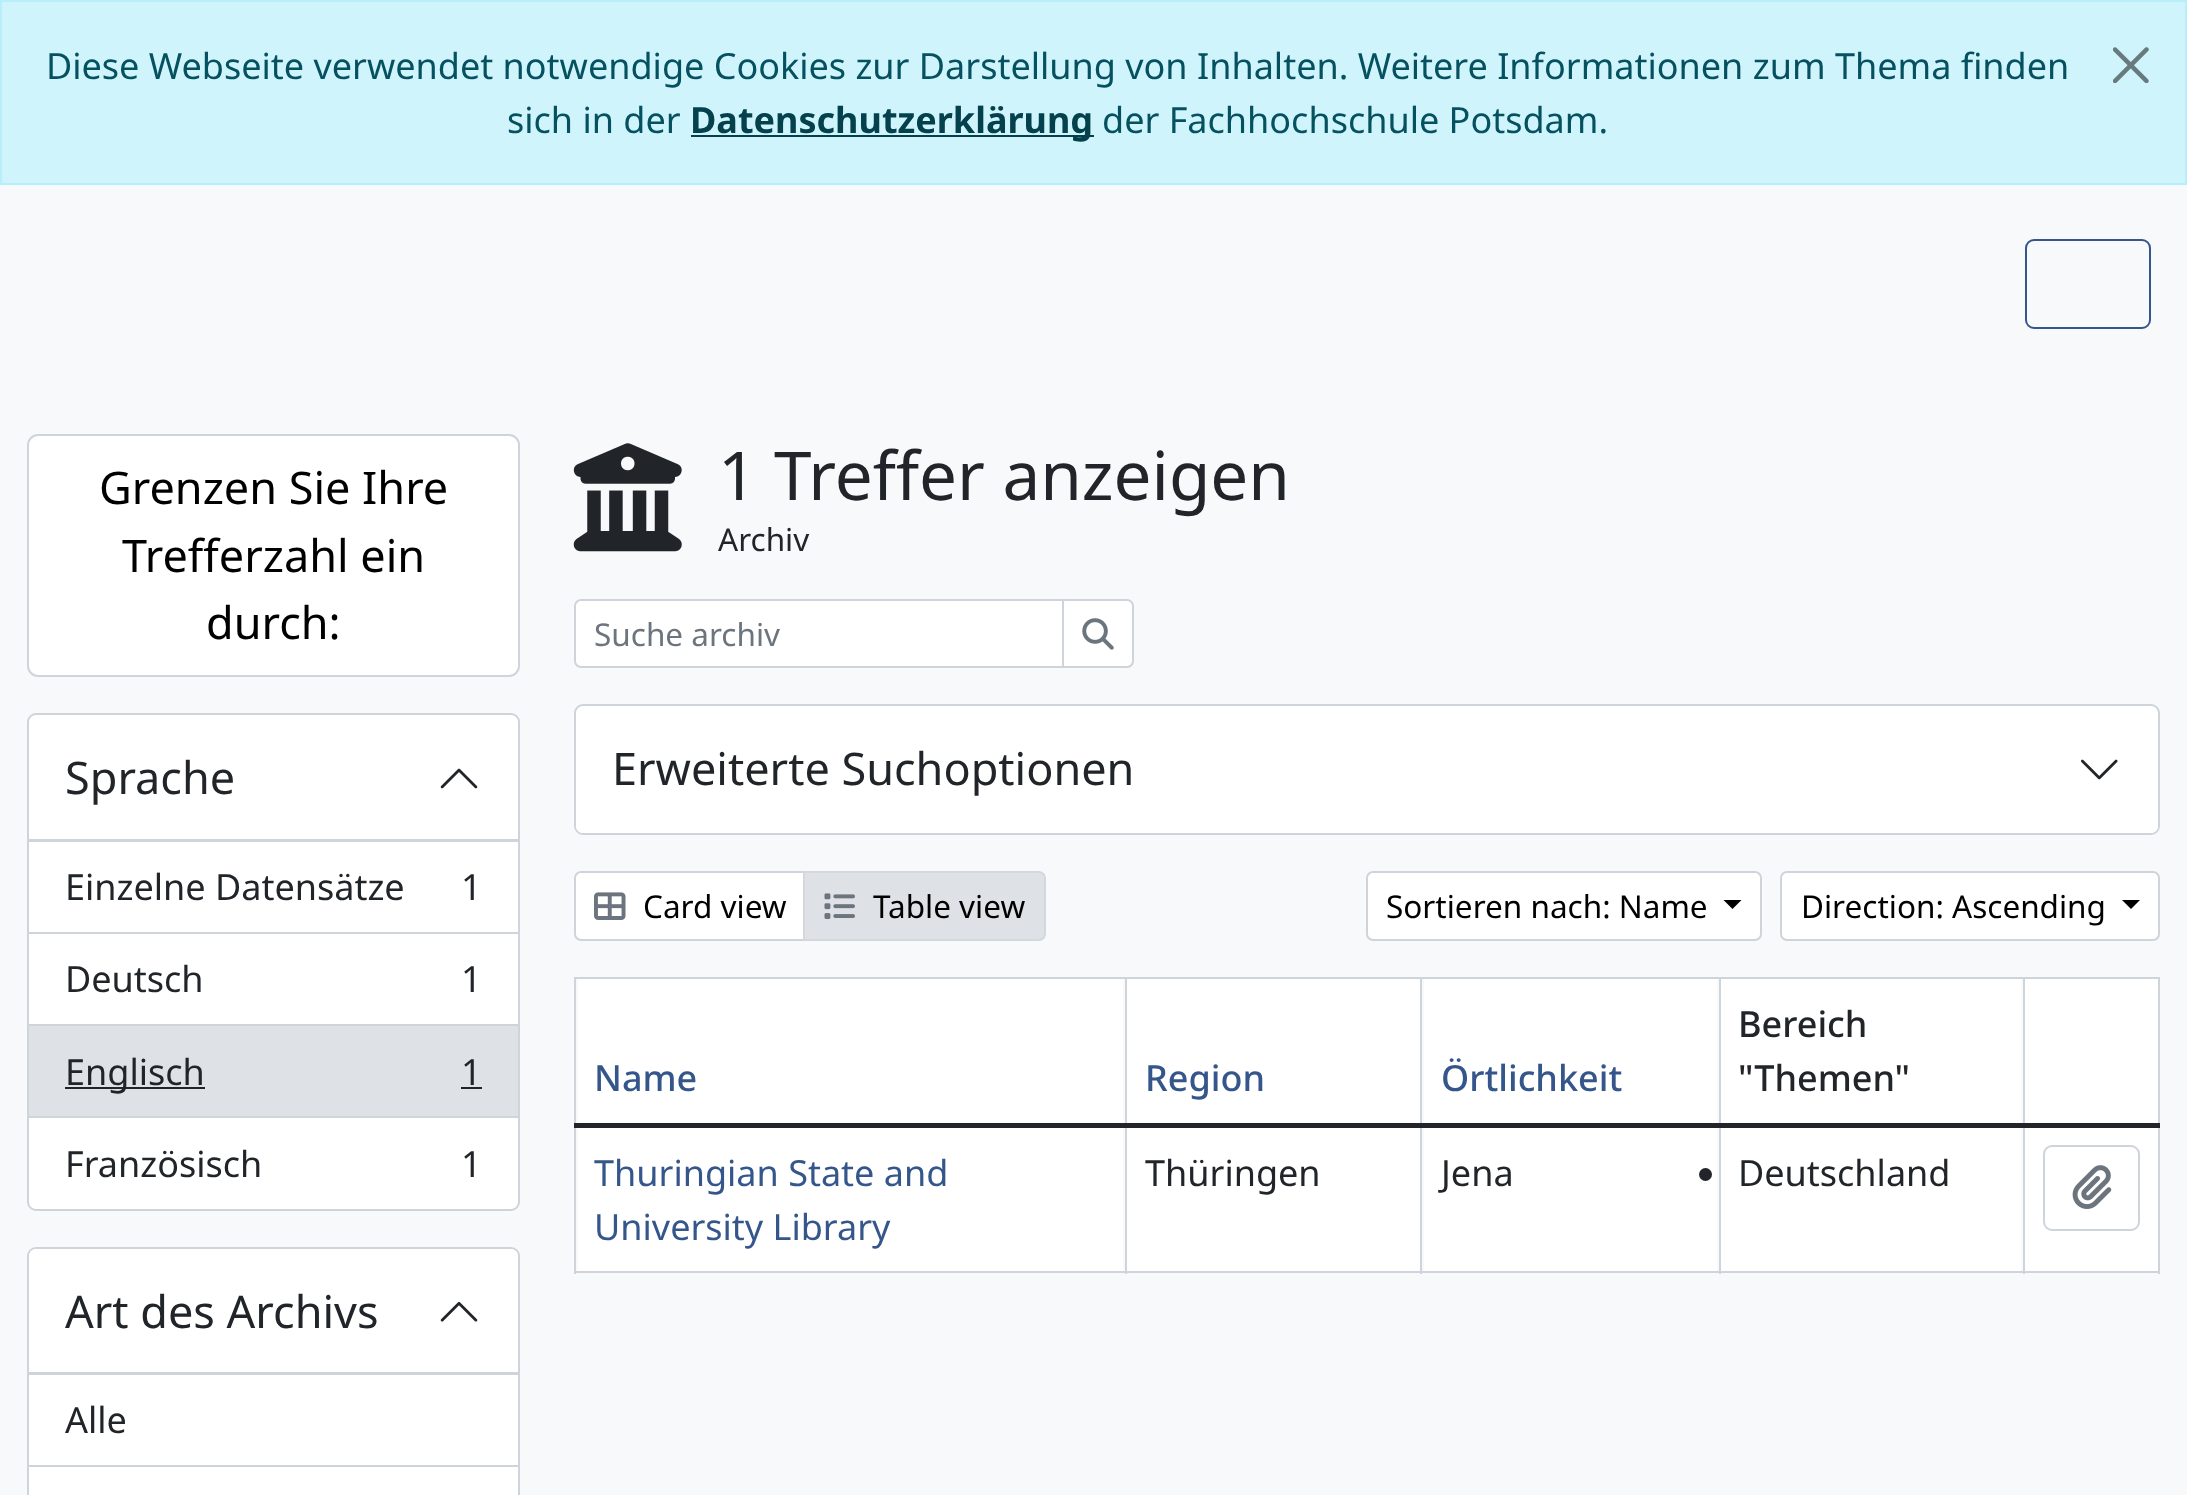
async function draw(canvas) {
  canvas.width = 2187
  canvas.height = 1495
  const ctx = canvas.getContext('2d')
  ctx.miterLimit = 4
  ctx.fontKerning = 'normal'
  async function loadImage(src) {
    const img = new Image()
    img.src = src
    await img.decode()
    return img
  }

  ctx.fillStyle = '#f8f9fa'
  ctx.fillRect(0, 0, 2187, 1495)
  ctx.fillStyle = '#cff4fc'
  ctx.beginPath()
  ctx.rect(1, 1, 2185, 183)
  ctx.fill()
  ctx.strokeStyle = '#b6effb'
  ctx.lineWidth = 2
  ctx.stroke()
  ctx.font = '36px Noto Sans'
  ctx.fillStyle = '#055160'
  ctx.fillText('Diese Webseite verwendet notwendige Cookies zur Darstellung von Inhalten. Weitere Informationen zum Thema finden', 46, 79)
  ctx.fillText('sich in der', 507, 133)
  ctx.fillStyle = '#04414d'
  ctx.fillRect(691, 135, 403, 2)
  ctx.font = 'bold 36px Noto Sans'
  ctx.fillText('Datenschutzerklärung', 690, 133)
  ctx.font = '36px Noto Sans'
  ctx.fillStyle = '#055160'
  ctx.fillText('der Fachhochschule Potsdam.', 1102, 133)
  ctx.drawImage(await loadImage('image0.png'), 2113, 47, 36, 36)
  ctx.beginPath()
  ctx.roundRect(2026, 240, 124, 88, 8)
  ctx.strokeStyle = '#35568b'
  ctx.stroke()
  ctx.fillStyle = '#fff'
  ctx.beginPath()
  ctx.roundRect(28, 435, 491, 241, 10)
  ctx.fill()
  ctx.strokeStyle = '#ced4da'
  ctx.stroke()
  ctx.font = '45px Noto Sans'
  ctx.fillStyle = '#000'
  ctx.fillText('Grenzen Sie Ihre', 99, 504)
  ctx.fillText('Trefferzahl ein', 122, 572)
  ctx.fillText('durch:', 206, 639)
  ctx.fillStyle = '#fff'
  ctx.beginPath()
  ctx.roundRect(28, 714, 491, 496, 8)
  ctx.fill()
  ctx.stroke()
  ctx.beginPath()
  ctx.roundRect(29, 716, 489, 126, [7, 7, 0, 0])
  ctx.fill()
  ctx.fillStyle = '#ced4da'
  ctx.fillRect(29, 839, 489, 3)
  ctx.fillStyle = '#212529'
  ctx.fillText('Sprache', 65, 794)
  ctx.drawImage(await loadImage('image1.png'), 440, 768, 38, 21)
  ctx.fillStyle = '#ced4da'
  ctx.fillRect(29, 932, 489, 2)
  ctx.font = '36px Noto Sans'
  ctx.fillStyle = '#212529'
  ctx.fillText('Einzelne Datensätze', 65, 900)
  ctx.fillText('1', 461, 900)
  ctx.fillStyle = '#ced4da'
  ctx.fillRect(29, 1024, 489, 2)
  ctx.fillStyle = '#212529'
  ctx.fillText('Deutsch', 65, 992)
  ctx.fillText('1', 461, 992)
  ctx.fillStyle = '#dee2e6'
  ctx.fillRect(29, 1026, 489, 90)
  ctx.fillStyle = '#ced4da'
  ctx.fillRect(29, 1116, 489, 2)
  ctx.fillStyle = '#212529'
  ctx.fillRect(65, 1087, 140, 2)
  ctx.fillText('Englisch', 65, 1085)
  ctx.fillText('1', 461, 1085)
  ctx.fillRect(461, 1087, 21, 2)
  ctx.fillText('Französisch', 65, 1177)
  ctx.fillText('1', 461, 1177)
  ctx.fillStyle = '#fff'
  ctx.beginPath()
  ctx.roundRect(28, 1248, 491, 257, 8)
  ctx.fill()
  ctx.stroke()
  ctx.beginPath()
  ctx.roundRect(29, 1249, 489, 126, [7, 7, 0, 0])
  ctx.fill()
  ctx.fillStyle = '#ced4da'
  ctx.fillRect(29, 1372, 489, 3)
  ctx.font = '45px Noto Sans'
  ctx.fillStyle = '#212529'
  ctx.fillText('Art des Archivs', 65, 1328)
  ctx.drawImage(await loadImage('image2.png'), 440, 1301, 38, 21)
  ctx.fillStyle = '#ced4da'
  ctx.fillRect(29, 1465, 489, 2)
  ctx.font = '36px Noto Sans'
  ctx.fillStyle = '#212529'
  ctx.fillText('Alle', 65, 1433)
  ctx.drawImage(await loadImage('image3.png'), 573, 443, 109, 109)
  ctx.font = '67.4px Noto Sans'
  ctx.fillText('1 Treffer anzeigen', 718, 500)
  ctx.font = '31.5px Noto Sans'
  ctx.fillText('Archiv', 718, 551)
  ctx.fillStyle = '#fff'
  ctx.beginPath()
  ctx.roundRect(575, 600, 488, 67, [6, 0, 0, 6])
  ctx.fill()
  ctx.stroke()
  ctx.fillStyle = '#6c757d'
  ctx.fillText('Suche archiv', 594, 646)
  ctx.fillStyle = '#fff'
  ctx.beginPath()
  ctx.roundRect(1063, 600, 70, 67, [0, 6, 6, 0])
  ctx.fill()
  ctx.stroke()
  ctx.drawImage(await loadImage('image4.png'), 1082, 618, 32, 32)
  ctx.beginPath()
  ctx.roundRect(575, 705, 1584, 129, 8)
  ctx.fill()
  ctx.stroke()
  ctx.beginPath()
  ctx.roundRect(576, 707, 1582, 126, 7)
  ctx.fill()
  ctx.font = '45px Noto Sans'
  ctx.fillStyle = '#212529'
  ctx.fillText('Erweiterte Suchoptionen', 612, 785)
  ctx.drawImage(await loadImage('image5.png'), 2081, 759, 37, 21)
  ctx.fillStyle = '#fff'
  ctx.beginPath()
  ctx.roundRect(575, 872, 230, 68, [6, 0, 0, 6])
  ctx.fill()
  ctx.stroke()
  ctx.drawImage(await loadImage('image6.png'), 594, 892, 32, 28)
  ctx.font = '31.5px Noto Sans'
  ctx.fillStyle = '#000'
  ctx.fillText('Card view', 643, 918)
  ctx.fillStyle = '#dee2e6'
  ctx.beginPath()
  ctx.roundRect(804, 872, 241, 68, [0, 6, 6, 0])
  ctx.fill()
  ctx.strokeStyle = '#d3d8de'
  ctx.stroke()
  ctx.drawImage(await loadImage('image7.png'), 824, 893, 31, 26)
  ctx.fillStyle = '#000'
  ctx.fillText('Table view', 873, 918)
  ctx.fillStyle = '#fff'
  ctx.beginPath()
  ctx.roundRect(1367, 872, 394, 68, 6)
  ctx.fill()
  ctx.strokeStyle = '#ced4da'
  ctx.stroke()
  ctx.fillStyle = '#000'
  ctx.fillText('Sortieren nach: Name', 1386, 918)
  ctx.beginPath()
  ctx.moveTo(1723.5, 900)
  ctx.lineTo(1741.5, 900)
  ctx.lineTo(1732.5, 909)
  ctx.closePath()
  ctx.fill()
  ctx.fillStyle = '#fff'
  ctx.beginPath()
  ctx.roundRect(1781, 872, 378, 68, 6)
  ctx.fill()
  ctx.stroke()
  ctx.fillStyle = '#000'
  ctx.fillText('Direction: Ascending', 1801, 918)
  ctx.beginPath()
  ctx.moveTo(2122, 900)
  ctx.lineTo(2140, 900)
  ctx.lineTo(2131, 909)
  ctx.closePath()
  ctx.fill()
  ctx.fillStyle = '#ced4da'
  ctx.fillRect(574, 977, 1586, 2)
  ctx.fillStyle = '#fff'
  ctx.fillRect(578, 979, 545, 144)
  ctx.font = '500 36px Noto Sans'
  ctx.fillStyle = '#35568b'
  ctx.fillText('Name', 594, 1091)
  ctx.fillStyle = '#fff'
  ctx.fillRect(1127, 979, 293, 144)
  ctx.fillStyle = '#35568b'
  ctx.fillText('Region', 1145, 1091)
  ctx.fillStyle = '#fff'
  ctx.fillRect(1424, 979, 293, 144)
  ctx.fillStyle = '#35568b'
  ctx.fillText('Örtlichkeit', 1441, 1091)
  ctx.fillStyle = '#fff'
  ctx.fillRect(1721, 979, 300, 144)
  ctx.fillStyle = '#212529'
  ctx.fillText('Bereich', 1738, 1037)
  ctx.fillText('"Themen"', 1738, 1091)
  ctx.fillStyle = '#fff'
  ctx.fillRect(2025, 979, 133, 144)
  ctx.fillStyle = '#ced4da'
  ctx.fillRect(574, 1271, 1586, 2)
  ctx.fillRect(574, 977, 2, 297)
  ctx.fillRect(1125, 977, 2, 297)
  ctx.fillRect(1420, 977, 2, 297)
  ctx.fillRect(1719, 977, 2, 297)
  ctx.fillRect(2158, 977, 2, 297)
  ctx.fillRect(2023, 977, 2, 297)
  ctx.fillStyle = '#212529'
  ctx.fillRect(574, 1123, 1586, 5)
  ctx.fillStyle = '#fff'
  ctx.fillRect(578, 1128, 545, 143)
  ctx.font = '36px Noto Sans'
  ctx.fillStyle = '#35568b'
  ctx.fillText('Thuringian State and', 594, 1186)
  ctx.fillText('University Library', 594, 1240)
  ctx.fillStyle = '#fff'
  ctx.fillRect(1127, 1128, 293, 143)
  ctx.fillStyle = '#212529'
  ctx.fillText('Thüringen', 1145, 1186)
  ctx.fillStyle = '#fff'
  ctx.fillRect(1424, 1128, 293, 143)
  ctx.fillStyle = '#212529'
  ctx.fillText('Jena', 1441, 1186)
  ctx.fillStyle = '#fff'
  ctx.fillRect(1721, 1128, 300, 143)
  ctx.fillStyle = '#212529'
  ctx.beginPath()
  ctx.arc(1705.5, 1174.5, 6.5, 0, 2 * Math.PI)
  ctx.fill()
  ctx.fillText('Deutschland', 1738, 1186)
  ctx.fillStyle = '#fff'
  ctx.fillRect(2025, 1128, 133, 143)
  ctx.beginPath()
  ctx.roundRect(2044, 1146, 95, 84, 8)
  ctx.stroke()
  ctx.drawImage(await loadImage('image8.png'), 2072, 1165, 40, 44)
}

draw(document.querySelector('canvas'))
